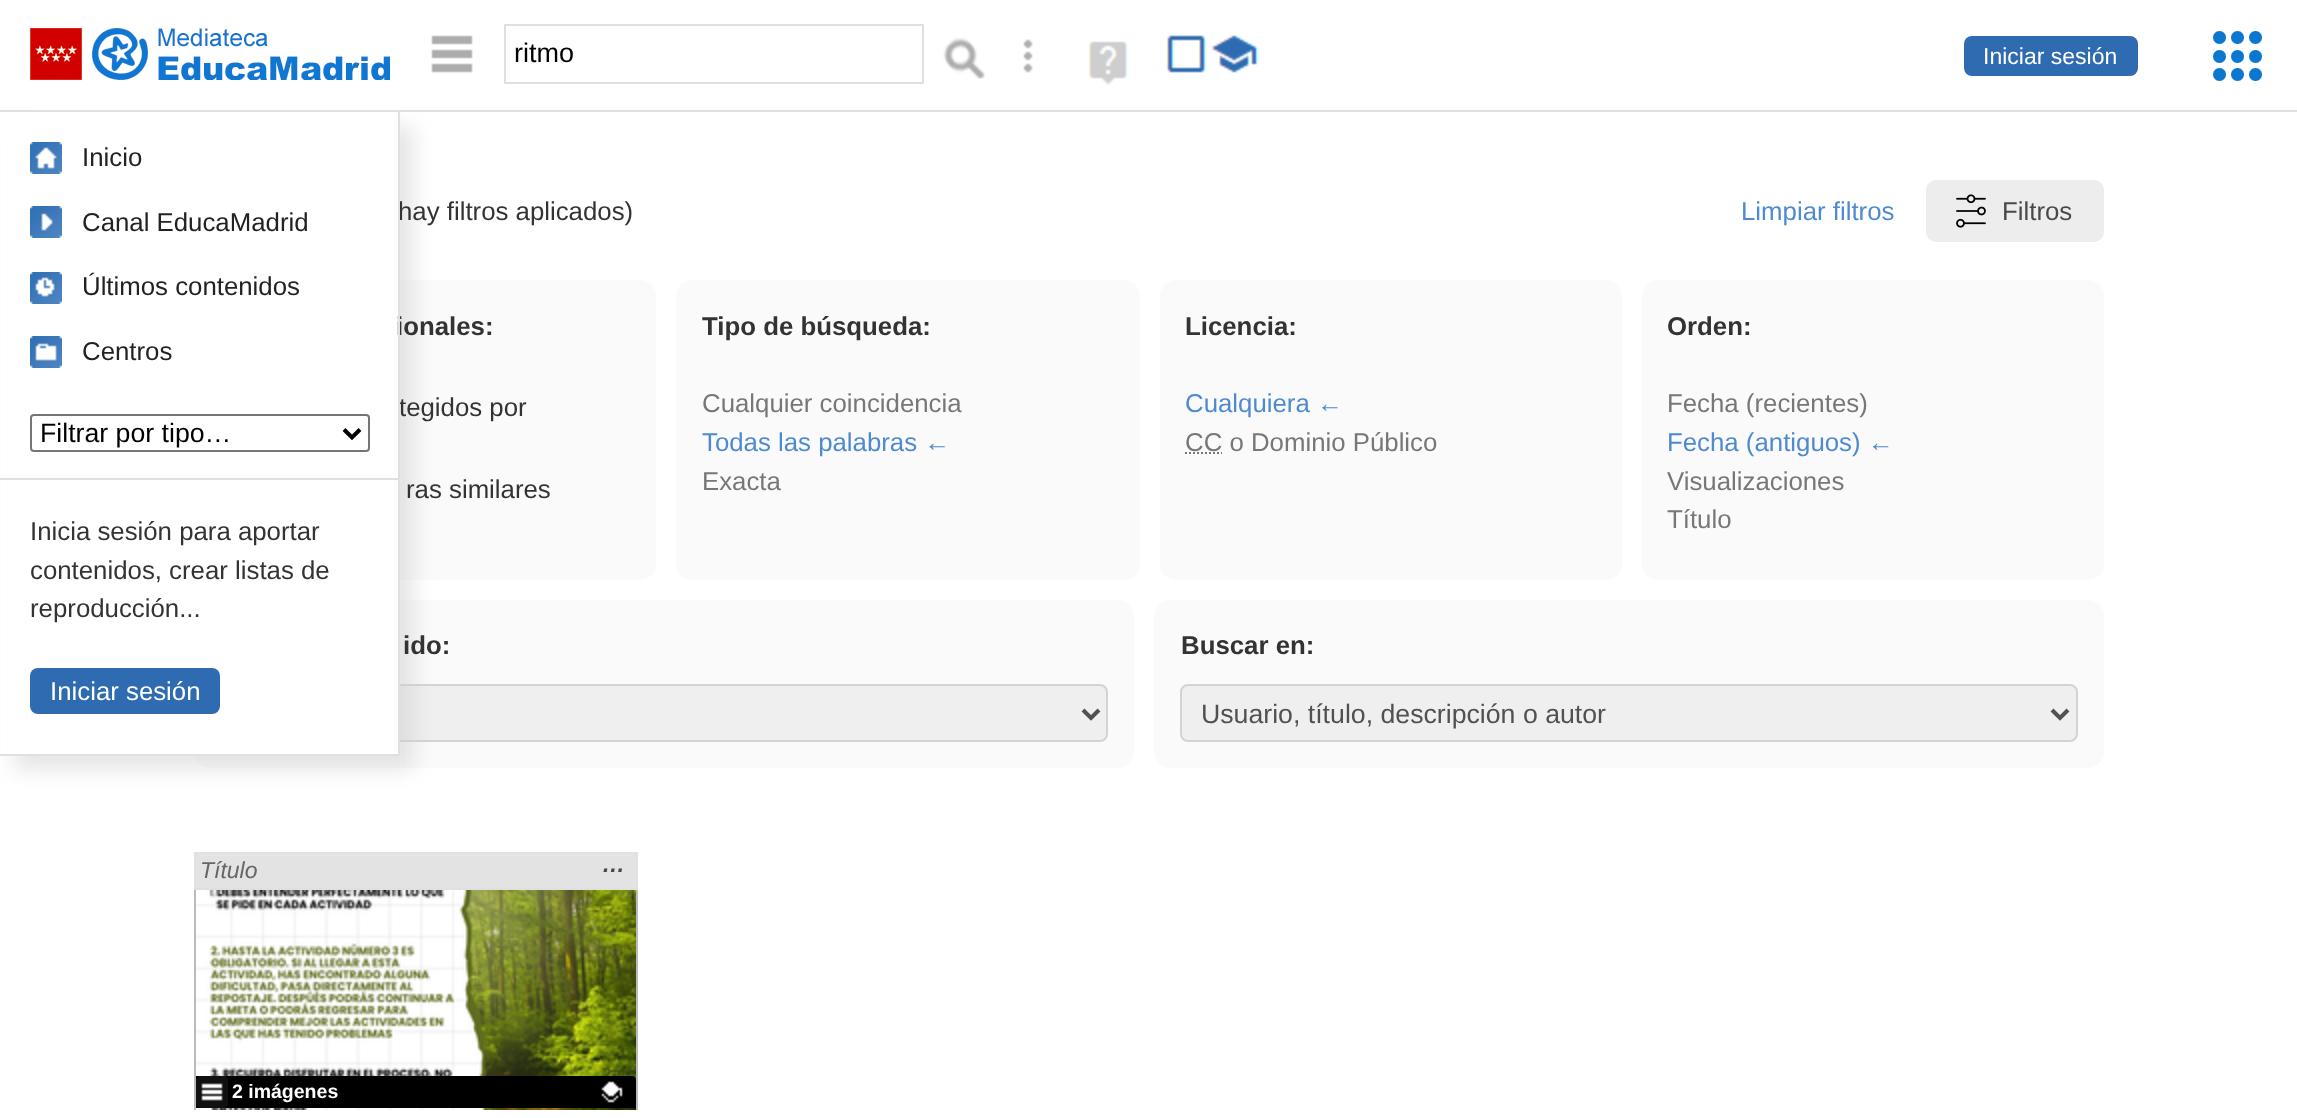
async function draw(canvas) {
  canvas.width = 2297
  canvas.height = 1118
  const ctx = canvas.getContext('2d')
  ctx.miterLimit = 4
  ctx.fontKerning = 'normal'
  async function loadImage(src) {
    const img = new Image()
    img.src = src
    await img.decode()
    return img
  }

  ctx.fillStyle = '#fff'
  ctx.fillRect(0, 0, 2297, 1118)
  ctx.fillStyle = '#fafafa'
  ctx.beginPath()
  ctx.roundRect(194, 280, 462, 300, 16)
  ctx.fill()
  ctx.beginPath()
  ctx.roundRect(194, 600, 940, 168, 16)
  ctx.fill()
  ctx.fillStyle = '#efefef'
  ctx.beginPath()
  ctx.roundRect(221, 685, 886, 56, 7)
  ctx.fill()
  ctx.strokeStyle = '#d3d3d3'
  ctx.lineWidth = 2
  ctx.stroke()
  ctx.fillStyle = '#cecece80'
  ctx.filter = 'blur(10px)'
  ctx.beginPath()
  ctx.rect(14, 126, 400, 644)
  ctx.fill()
  ctx.filter = 'none'
  ctx.fillStyle = '#e0e0e0'
  ctx.fillRect(0, 110, 2297, 2)
  ctx.drawImage(await loadImage('image0.png'), 30, 28, 360, 52)
  ctx.drawImage(await loadImage('image1.png'), 431, 35, 42, 38)
  ctx.strokeStyle = '#e0e0e0'
  ctx.strokeRect(505, 25, 418, 58)
  ctx.font = '27px Liberation Sans'
  ctx.fillStyle = '#000'
  ctx.fillText('ritmo', 514, 62)
  ctx.drawImage(await loadImage('image2.png'), 943, 37, 42, 42)
  ctx.drawImage(await loadImage('image3.png'), 1023, 39, 10, 34)
  ctx.drawImage(await loadImage('image4.png'), 1087, 41, 42, 44)
  ctx.drawImage(await loadImage('image5.png'), 1166, 35, 93, 38)
  ctx.fillStyle = '#2f6bb0'
  ctx.beginPath()
  ctx.roundRect(1964, 36, 174, 40, 8)
  ctx.fill()
  ctx.font = '23px Liberation Sans'
  ctx.fillStyle = '#fff'
  ctx.fillText('Iniciar sesión', 1983, 64)
  ctx.fillRect(1, 113, 397, 641)
  ctx.font = '25.8px Liberation Sans'
  ctx.fillStyle = '#333'
  ctx.fillText('hay filtros aplicados)', 398, 220)
  ctx.font = 'bold 25.8px Liberation Sans'
  ctx.fillText('ionales:', 396, 335)
  ctx.font = '25.8px Liberation Sans'
  ctx.fillText('tegidos por', 399, 416)
  ctx.fillStyle = '#e0e0e0'
  ctx.fillRect(398, 112, 2, 644)
  ctx.fillRect(0, 754, 400, 2)
  ctx.drawImage(await loadImage('image6.png'), 30, 142, 32, 32)
  ctx.fillStyle = '#222'
  ctx.fillText('Inicio', 82, 166)
  ctx.drawImage(await loadImage('image7.png'), 30, 206, 32, 32)
  ctx.fillText('Canal EducaMadrid', 82, 231)
  ctx.drawImage(await loadImage('image8.png'), 30, 272, 32, 32)
  ctx.fillText('Últimos contenidos', 82, 295)
  ctx.drawImage(await loadImage('image9.png'), 30, 336, 32, 32)
  ctx.fillText('Centros', 82, 360)
  ctx.beginPath()
  ctx.roundRect(31, 415, 338, 36, 3)
  ctx.strokeStyle = '#767676'
  ctx.stroke()
  ctx.beginPath()
  ctx.moveTo(344, 429.5)
  ctx.lineTo(352, 437.5)
  ctx.lineTo(360, 429.5)
  ctx.strokeStyle = '#000'
  ctx.lineWidth = 4
  ctx.stroke()
  ctx.font = '26.7px Liberation Sans'
  ctx.fillStyle = '#000'
  ctx.fillText('Filtrar por tipo…', 40, 442)
  ctx.fillStyle = '#e0e0e0'
  ctx.fillRect(0, 478, 398, 2)
  ctx.font = '25.8px Liberation Sans'
  ctx.fillStyle = '#333'
  ctx.fillText('Inicia sesión para aportar', 30, 540)
  ctx.fillText('contenidos, crear listas de', 30, 579)
  ctx.fillText('reproducción...', 30, 617)
  ctx.fillStyle = '#2f6bb0'
  ctx.beginPath()
  ctx.roundRect(30, 668, 190, 46, 8)
  ctx.fill()
  ctx.fillStyle = '#fff'
  ctx.fillText('Iniciar sesión', 50, 700)
  ctx.fillStyle = '#4e8ad0'
  ctx.fillText('Limpiar filtros', 1741, 220)
  ctx.fillStyle = '#ededed'
  ctx.beginPath()
  ctx.roundRect(1926, 180, 178, 62, 10)
  ctx.fill()
  ctx.drawImage(await loadImage('image10.png'), 1956, 194, 30, 34)
  ctx.fillStyle = '#494949'
  ctx.fillText('Filtros', 2002, 220)
  ctx.fillStyle = '#333'
  ctx.fillText('ras similares', 406, 498)
  ctx.fillStyle = '#fafafa'
  ctx.beginPath()
  ctx.roundRect(676, 280, 464, 300, 16)
  ctx.fill()
  ctx.font = 'bold 25.8px Liberation Sans'
  ctx.fillStyle = '#333'
  ctx.fillText('Tipo de búsqueda:', 702, 335)
  ctx.font = '25.8px Liberation Sans'
  ctx.fillStyle = '#777'
  ctx.fillText('Cualquier coincidencia', 702, 412)
  ctx.fillStyle = '#4e8ad0'
  ctx.fillText('Todas las palabras ←', 702, 451)
  ctx.fillStyle = '#777'
  ctx.fillText('Exacta', 702, 490)
  ctx.fillStyle = '#fafafa'
  ctx.beginPath()
  ctx.roundRect(1160, 280, 462, 300, 16)
  ctx.fill()
  ctx.font = 'bold 25.8px Liberation Sans'
  ctx.fillStyle = '#333'
  ctx.fillText('Licencia:', 1185, 335)
  ctx.font = '25.8px Liberation Sans'
  ctx.fillStyle = '#4e8ad0'
  ctx.fillText('Cualquiera ←', 1185, 412)
  ctx.fillStyle = '#777'
  ctx.fillText('CC o Dominio Público', 1185, 451)
  ctx.beginPath()
  ctx.moveTo(1185, 453)
  ctx.lineTo(1222, 453)
  ctx.strokeStyle = '#777'
  ctx.lineWidth = 2
  ctx.setLineDash([2, 2])
  ctx.stroke()
  ctx.fillStyle = '#fafafa'
  ctx.beginPath()
  ctx.roundRect(1642, 280, 462, 300, 16)
  ctx.fill()
  ctx.font = 'bold 25.8px Liberation Sans'
  ctx.fillStyle = '#333'
  ctx.fillText('Orden:', 1667, 335)
  ctx.font = '25.8px Liberation Sans'
  ctx.fillStyle = '#777'
  ctx.fillText('Fecha (recientes)', 1667, 412)
  ctx.fillStyle = '#4e8ad0'
  ctx.fillText('Fecha (antiguos) ←', 1667, 451)
  ctx.fillStyle = '#777'
  ctx.fillText('Visualizaciones', 1667, 490)
  ctx.fillText('Título', 1667, 528)
  ctx.font = 'bold 25.8px Liberation Sans'
  ctx.fillStyle = '#333'
  ctx.fillText('ido:', 403, 654)
  ctx.beginPath()
  ctx.moveTo(1083, 710)
  ctx.lineTo(1091, 718)
  ctx.lineTo(1099, 710)
  ctx.strokeStyle = '#515151'
  ctx.lineWidth = 4
  ctx.setLineDash([])
  ctx.stroke()
  ctx.fillStyle = '#fafafa'
  ctx.beginPath()
  ctx.roundRect(1154, 600, 950, 168, 16)
  ctx.fill()
  ctx.fillStyle = '#333'
  ctx.fillText('Buscar en:', 1181, 654)
  ctx.fillStyle = '#efefef'
  ctx.beginPath()
  ctx.roundRect(1181, 685, 896, 56, 7)
  ctx.fill()
  ctx.strokeStyle = '#d3d3d3'
  ctx.lineWidth = 2
  ctx.stroke()
  ctx.beginPath()
  ctx.moveTo(2052, 710)
  ctx.lineTo(2060, 718)
  ctx.lineTo(2068, 710)
  ctx.strokeStyle = '#515151'
  ctx.lineWidth = 4
  ctx.stroke()
  ctx.font = '26.7px Liberation Sans'
  ctx.fillStyle = '#515151'
  ctx.fillText('Usuario, título, descripción o autor', 1201, 723)
  ctx.strokeStyle = '#bbb'
  ctx.lineWidth = 2
  ctx.strokeRect(195, 889, 442, 220)
  ctx.fillStyle = '#e0e0e0e6'
  ctx.fillRect(194, 852, 444, 38)
  ctx.strokeStyle = '#e0e0e0e6'
  ctx.strokeRect(195, 853, 442, 36)
  ctx.font = 'italic 23px Liberation Sans'
  ctx.fillStyle = '#666'
  ctx.fillText('Título', 200, 878)
  ctx.font = 'italic bold 23px Liberation Sans'
  ctx.fillStyle = '#494949'
  ctx.fillText('…', 602, 872)
  ctx.drawImage(await loadImage('image11.png'), 196, 890, 440, 220)
  ctx.fillStyle = '#000'
  ctx.beginPath()
  ctx.roundRect(196, 1076, 440, 32, [0, 4, 0, 0])
  ctx.fill()
  ctx.drawImage(await loadImage('image12.png'), 601, 1081, 22, 22)
  ctx.drawImage(await loadImage('image13.png'), 196, 1076, 32, 32)
  ctx.font = 'bold 19.5px Liberation Sans'
  ctx.fillStyle = '#fff'
  ctx.fillText('2 imágenes', 232, 1098)
  ctx.drawImage(await loadImage('image14.png'), 2213, 31, 49, 50)
}

draw(document.querySelector('canvas'))
